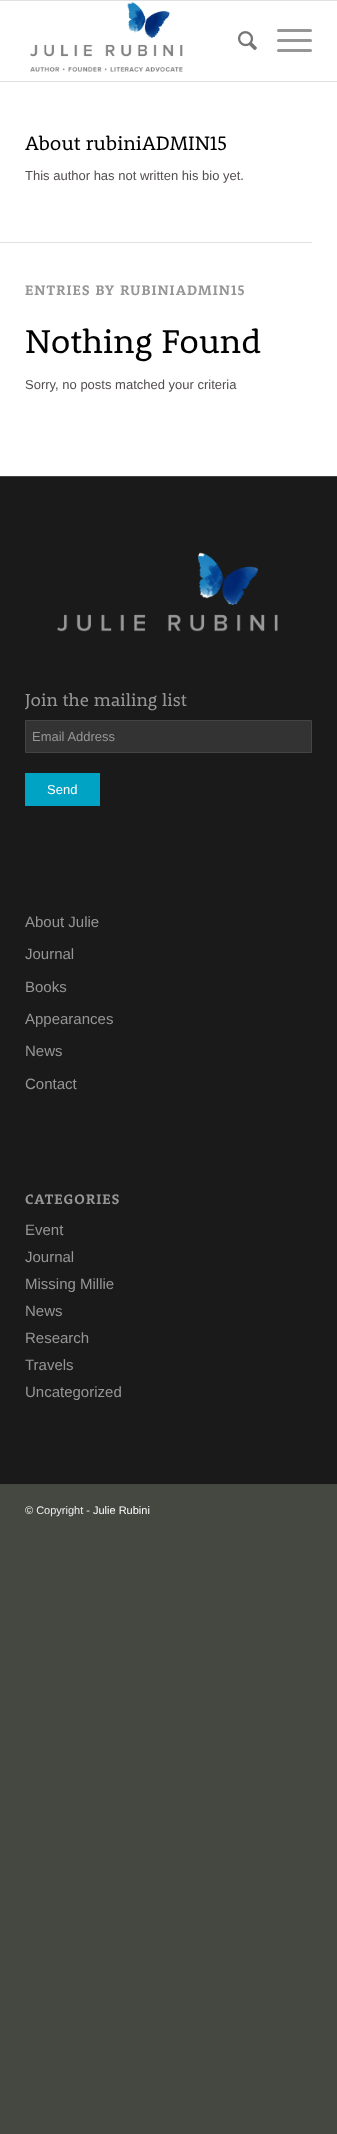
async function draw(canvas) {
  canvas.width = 337
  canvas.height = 2134
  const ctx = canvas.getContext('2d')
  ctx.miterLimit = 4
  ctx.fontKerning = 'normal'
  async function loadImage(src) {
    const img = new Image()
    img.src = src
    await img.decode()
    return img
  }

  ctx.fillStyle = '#444841'
  ctx.fillRect(0, 0, 337, 2134)
  ctx.fillStyle = '#fff'
  ctx.fillRect(0, 1, 337, 475)
  ctx.fillStyle = '#e1e1e1'
  ctx.fillRect(0, 0, 337, 1)
  ctx.fillRect(0, 81, 337, 1)
  ctx.drawImage(await loadImage('image0.png'), 30, 2, 153, 70)
  ctx.drawImage(await loadImage('image1.png'), 238, 31, 19, 20)
  ctx.fillStyle = '#969696'
  ctx.beginPath()
  ctx.roundRect(277, 39, 35, 3, 1.5)
  ctx.fill()
  ctx.beginPath()
  ctx.roundRect(277, 29, 35, 3, 1.5)
  ctx.fill()
  ctx.beginPath()
  ctx.roundRect(277, 49, 35, 3, 1.5)
  ctx.fill()
  ctx.font = '20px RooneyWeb'
  ctx.fillStyle = '#000'
  ctx.fillText('About rubiniADMIN15', 25, 150)
  ctx.font = '13px Liberation Sans'
  ctx.fillStyle = '#534e4e'
  ctx.fillText('This author has not written his bio yet.', 25, 180)
  ctx.fillStyle = '#e1e1e1'
  ctx.fillRect(0, 242, 312, 1)
  ctx.letterSpacing = '1px'
  ctx.font = 'bold 14.25px RooneyWeb'
  ctx.fillStyle = '#969696'
  ctx.fillText('ENTRIES BY RUBINIADMIN15', 25, 295)
  ctx.letterSpacing = '0px'
  ctx.font = '34px RooneyWeb'
  ctx.fillStyle = '#000'
  ctx.fillText('Nothing Found', 25, 353)
  ctx.font = '13px Liberation Sans'
  ctx.fillStyle = '#534e4e'
  ctx.fillText('Sorry, no posts matched your criteria', 25, 389)
  ctx.fillStyle = '#1a1a1a'
  ctx.fillRect(0, 477, 337, 1007)
  ctx.fillStyle = '#444'
  ctx.fillRect(0, 476, 337, 1)
  ctx.drawImage(await loadImage('image2.png'), 57, 552, 221, 80)
  ctx.font = '18px RooneyWeb'
  ctx.fillStyle = '#969696'
  ctx.fillText('Join the mailing list', 25, 706)
  ctx.fillStyle = '#333'
  ctx.beginPath()
  ctx.rect(25.5, 720.5, 286, 32)
  ctx.fill()
  ctx.strokeStyle = '#444'
  ctx.stroke()
  ctx.font = '13px Liberation Sans'
  ctx.fillStyle = '#969696'
  ctx.fillText('Email Address', 32, 741)
  ctx.fillStyle = '#00a3c4'
  ctx.fillRect(25, 773, 75, 33)
  ctx.fillStyle = '#fff'
  ctx.fillText('Send', 47, 794)
  ctx.font = '15px Liberation Sans'
  ctx.fillStyle = '#969696'
  ctx.fillText('About Julie', 25, 927)
  ctx.fillText('Journal', 25, 959)
  ctx.fillText('Books', 25, 992)
  ctx.fillText('Appearances', 25, 1024)
  ctx.fillText('News', 25, 1056)
  ctx.fillText('Contact', 25, 1089)
  ctx.letterSpacing = '1px'
  ctx.font = 'bold 14.25px RooneyWeb'
  ctx.fillText('CATEGORIES', 25, 1204)
  ctx.letterSpacing = '0px'
  ctx.font = '15px Liberation Sans'
  ctx.fillText('Event', 25, 1235)
  ctx.fillText('Journal', 25, 1262)
  ctx.fillText('Missing Millie', 25, 1289)
  ctx.fillText('News', 25, 1316)
  ctx.fillText('Research', 25, 1343)
  ctx.fillText('Travels', 25, 1370)
  ctx.fillText('Uncategorized', 25, 1397)
  ctx.fillStyle = '#444'
  ctx.fillRect(0, 1484, 337, 1)
  ctx.font = '11px Liberation Sans'
  ctx.fillStyle = '#eee'
  ctx.fillText('© Copyright -', 25, 1514)
  ctx.fillStyle = '#fff'
  ctx.fillText('Julie Rubini', 93, 1514)
}

draw(document.querySelector('canvas'))
